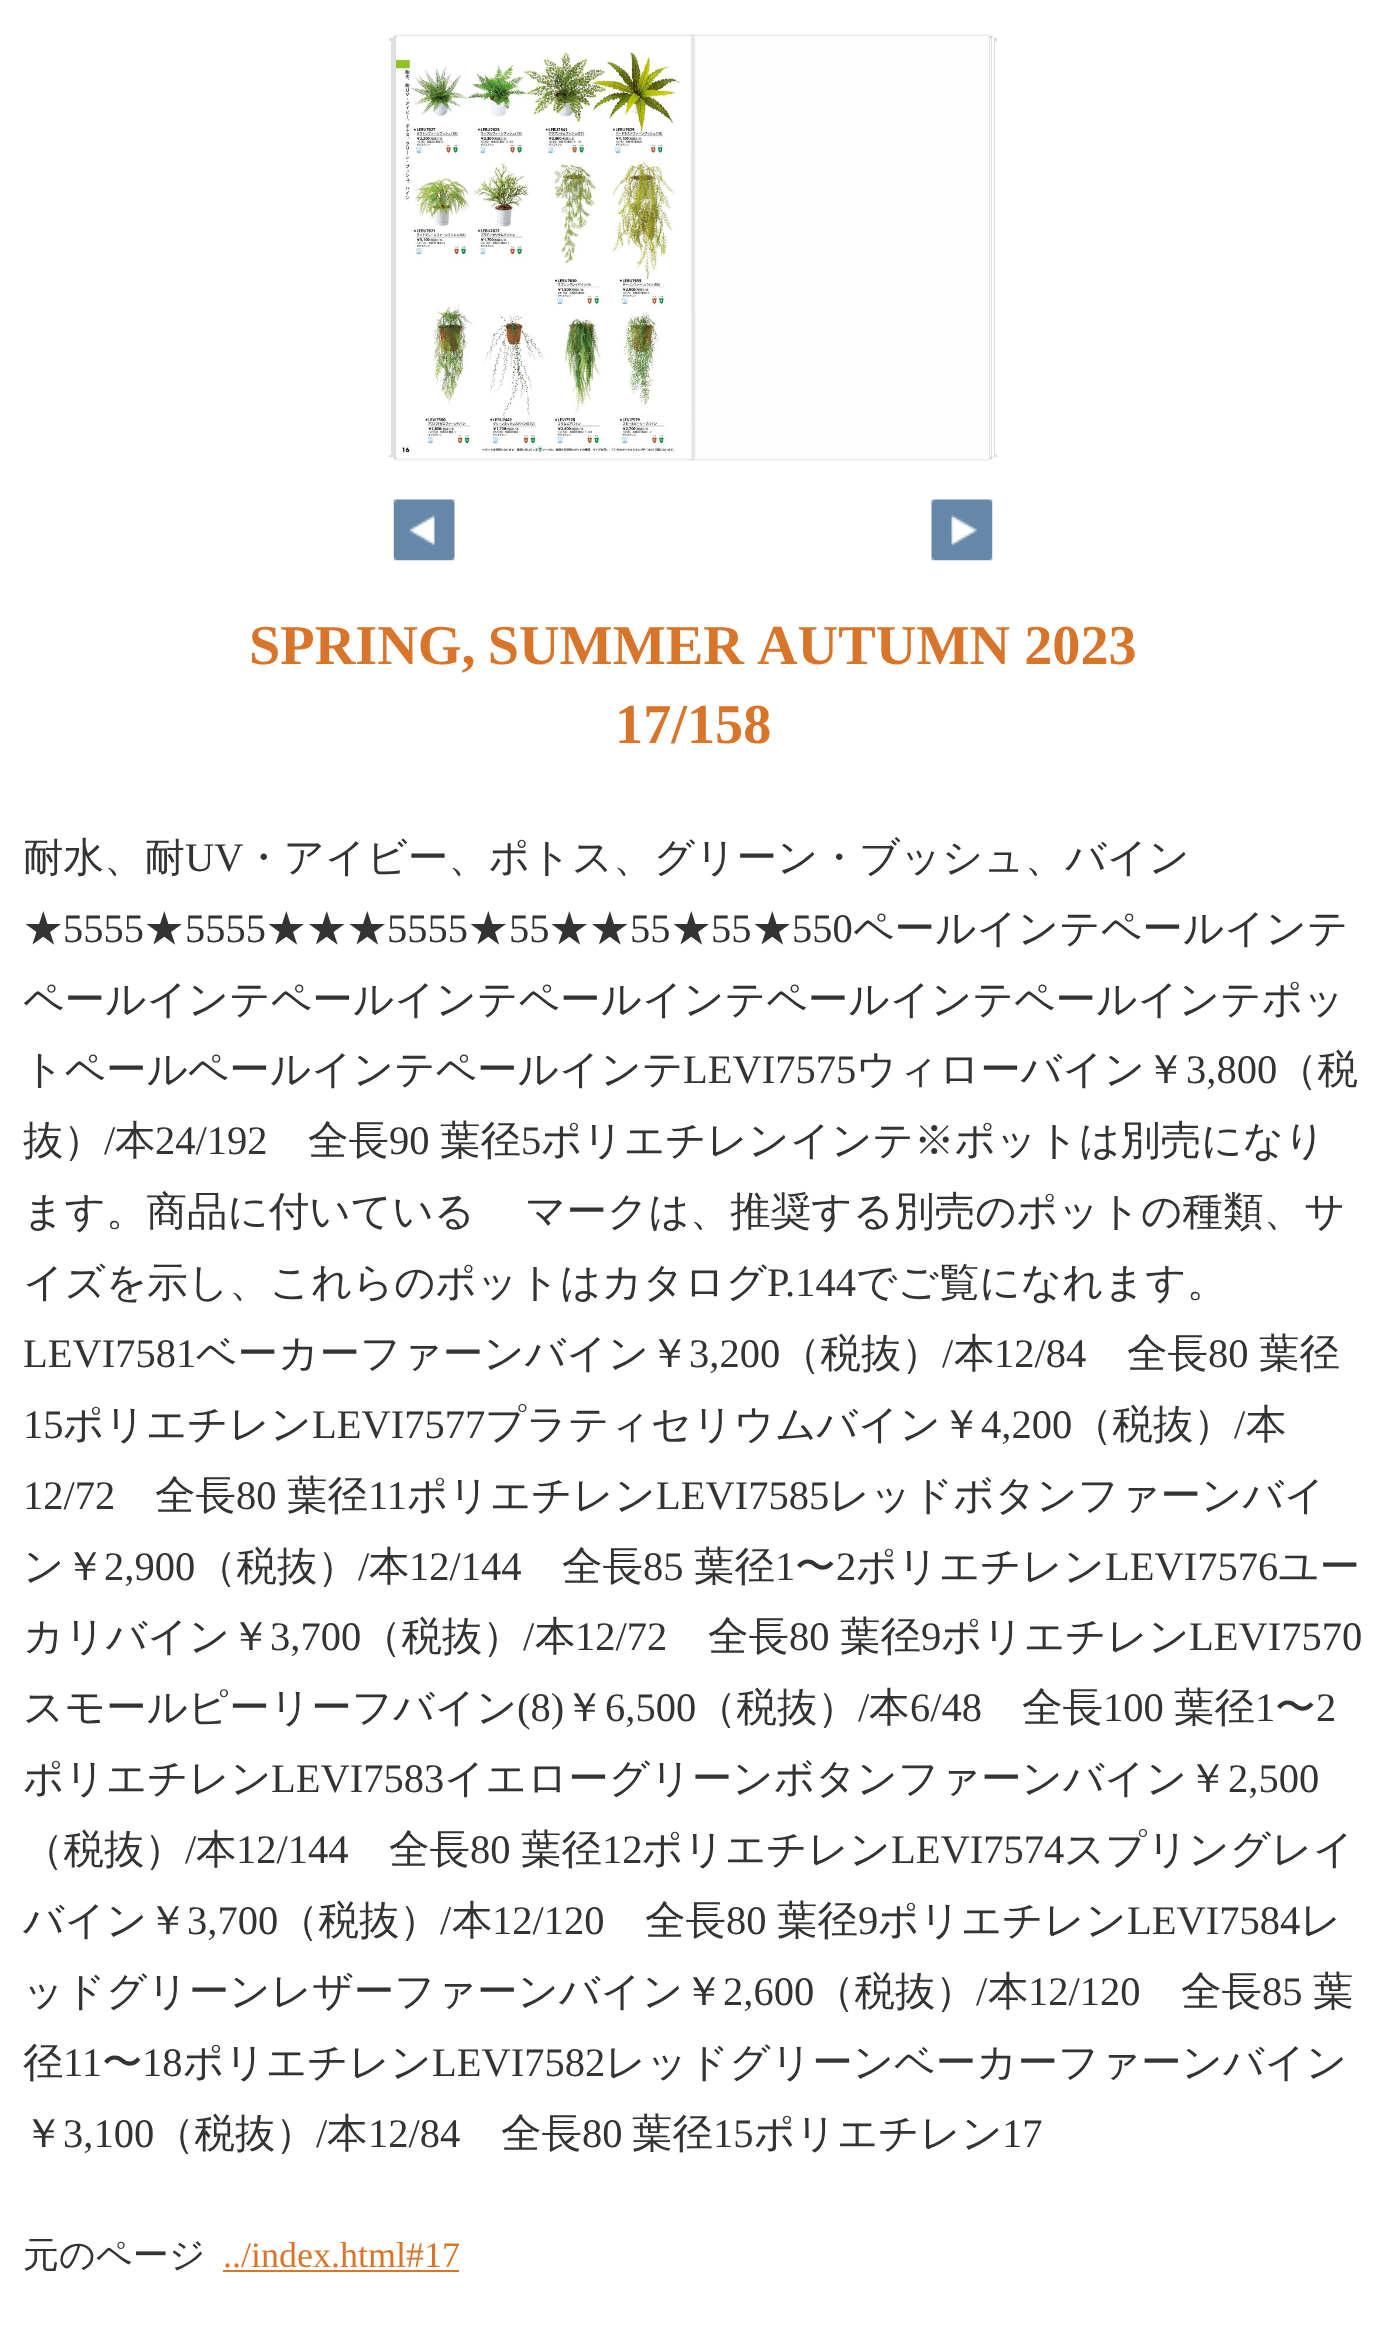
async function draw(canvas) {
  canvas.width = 1384
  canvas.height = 2330
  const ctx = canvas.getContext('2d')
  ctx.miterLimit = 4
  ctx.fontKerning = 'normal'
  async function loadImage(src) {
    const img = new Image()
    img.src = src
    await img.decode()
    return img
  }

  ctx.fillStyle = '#fff'
  ctx.fillRect(0, 0, 1384, 2330)
  ctx.fillStyle = '#00000033'
  ctx.filter = 'blur(1.5px)'
  ctx.beginPath()
  ctx.rect(394, 36, 301, 423)
  ctx.fill()
  ctx.filter = 'none'
  ctx.fillStyle = '#fdfdfd'
  ctx.fillRect(396, 36, 297, 423)
  ctx.strokeStyle = '#d2d2d2'
  ctx.lineWidth = 0.7
  ctx.strokeRect(394.35, 36.35, 1.3, 422.3)
  ctx.fillStyle = '#fff'
  ctx.beginPath()
  ctx.roundRect(394, 38, 2, 419, 1)
  ctx.fill()
  ctx.strokeRect(389.35, 38.35, 1.3, 418.3)
  ctx.beginPath()
  ctx.roundRect(389, 41, 2, 414, 1)
  ctx.fill()
  ctx.strokeRect(392.35, 38.35, 1.3, 418.3)
  ctx.beginPath()
  ctx.roundRect(392, 38, 2, 419, 1)
  ctx.fill()
  ctx.strokeRect(396.35, 36.35, -0.7, 422.3)
  ctx.strokeRect(392.35, 38.35, -0.7, 418.3)
  ctx.strokeRect(394.35, 38.35, -0.7, 418.3)
  ctx.fillStyle = '#00000033'
  ctx.filter = 'blur(1.5px)'
  ctx.beginPath()
  ctx.rect(691, 36, 301, 423)
  ctx.fill()
  ctx.filter = 'none'
  ctx.fillStyle = '#fdfdfd'
  ctx.fillRect(693, 36, 297, 423)
  ctx.strokeRect(990.35, 36.35, -0.7, 422.3)
  ctx.strokeRect(990.35, 36.35, 1.3, 422.3)
  ctx.fillStyle = '#fff'
  ctx.beginPath()
  ctx.roundRect(990, 38, 2, 419, 1)
  ctx.fill()
  ctx.strokeRect(992.35, 38.35, -0.7, 418.3)
  ctx.strokeRect(992.35, 38.35, 1.3, 418.3)
  ctx.beginPath()
  ctx.roundRect(992, 38, 2, 419, 1)
  ctx.fill()
  ctx.strokeRect(995.35, 38.35, -0.7, 418.3)
  ctx.strokeRect(995.35, 38.35, 1.3, 418.3)
  ctx.beginPath()
  ctx.roundRect(995, 41, 2, 414, 1)
  ctx.fill()
  ctx.drawImage(await loadImage('image0.png'), 396, 37, 297, 421)
  ctx.drawImage(await loadImage('image1.png'), 690, 37, 3, 421)
  ctx.drawImage(await loadImage('image2.png'), 693, 37, 3, 422)
  ctx.drawImage(await loadImage('image3.png'), 393, 499, 62, 62)
  ctx.drawImage(await loadImage('image4.png'), 931, 499, 62, 62)
  ctx.wordSpacing = '-2px'
  ctx.font = 'bold 56.25px Liberation Serif'
  ctx.fillStyle = '#d9752b'
  ctx.fillText('SPRING, SUMMER', 249, 664)
  ctx.wordSpacing = '0px'
  ctx.fillText('AUTUMN 2023', 757, 664)
  ctx.fillText('17/158', 615, 743)
  ctx.font = '500 40.5px WenQuanYi Zen Hei'
  ctx.fillStyle = '#333'
  ctx.fillText('耐水、耐', 23, 871)
  ctx.font = '40.5px Liberation Serif'
  ctx.fillText('UV', 185, 871)
  ctx.font = '500 40.5px WenQuanYi Zen Hei'
  ctx.fillText('・アイビー、ポトス、グリーン・ブッシュ、バイン', 243, 871)
  ctx.fillText('★', 23, 942)
  ctx.font = '40.5px Liberation Serif'
  ctx.fillText('5555', 63, 942)
  ctx.font = '500 40.5px WenQuanYi Zen Hei'
  ctx.fillText('★', 144, 942)
  ctx.font = '40.5px Liberation Serif'
  ctx.fillText('5555', 185, 942)
  ctx.font = '500 40.5px WenQuanYi Zen Hei'
  ctx.fillText('★★★', 266, 942)
  ctx.font = '40.5px Liberation Serif'
  ctx.fillText('5555', 387, 942)
  ctx.font = '500 40.5px WenQuanYi Zen Hei'
  ctx.fillText('★', 468, 942)
  ctx.font = '40.5px Liberation Serif'
  ctx.fillText('55', 509, 942)
  ctx.font = '500 40.5px WenQuanYi Zen Hei'
  ctx.fillText('★★', 549, 942)
  ctx.font = '40.5px Liberation Serif'
  ctx.fillText('55', 630, 942)
  ctx.font = '500 40.5px WenQuanYi Zen Hei'
  ctx.fillText('★', 671, 942)
  ctx.font = '40.5px Liberation Serif'
  ctx.fillText('55', 711, 942)
  ctx.font = '500 40.5px WenQuanYi Zen Hei'
  ctx.fillText('★', 752, 942)
  ctx.font = '40.5px Liberation Serif'
  ctx.fillText('550', 792, 942)
  ctx.font = '500 40.5px WenQuanYi Zen Hei'
  ctx.fillText('ペールインテペールインテ', 853, 942)
  ctx.fillText('ペールインテペールインテペールインテペールインテペールインテポッ', 23, 1013)
  ctx.fillText('トペールペールインテペールインテ', 23, 1083)
  ctx.font = '40.5px Liberation Serif'
  ctx.fillText('LEVI7575', 683, 1083)
  ctx.font = '500 40.5px WenQuanYi Zen Hei'
  ctx.fillText('ウィローバイン￥', 856, 1083)
  ctx.font = '40.5px Liberation Serif'
  ctx.fillText('3,800', 1186, 1083)
  ctx.font = '500 40.5px WenQuanYi Zen Hei'
  ctx.fillText('（税', 1277, 1083)
  ctx.fillText('抜）', 23, 1154)
  ctx.font = '40.5px Liberation Serif'
  ctx.fillText('/', 104, 1154)
  ctx.font = '500 40.5px WenQuanYi Zen Hei'
  ctx.fillText('本', 115, 1154)
  ctx.font = '40.5px Liberation Serif'
  ctx.fillText('24/192', 155, 1154)
  ctx.font = '500 40.5px WenQuanYi Zen Hei'
  ctx.fillText('全長', 308, 1154)
  ctx.font = '40.5px Liberation Serif'
  ctx.fillText('90', 389, 1154)
  ctx.font = '500 40.5px WenQuanYi Zen Hei'
  ctx.fillText('葉径', 440, 1154)
  ctx.font = '40.5px Liberation Serif'
  ctx.fillText('5', 521, 1154)
  ctx.font = '500 40.5px WenQuanYi Zen Hei'
  ctx.fillText('ポリエチレンインテ※ポットは別売になり', 541, 1154)
  ctx.fillText('ます。商品に付いている', 23, 1225)
  ctx.fillText('マークは、推奨する別売のポットの種類、サ', 525, 1225)
  ctx.fillText('イズを示し、これらのポットはカタログ', 23, 1296)
  ctx.font = '40.5px Liberation Serif'
  ctx.fillText('P.144', 767, 1296)
  ctx.font = '500 40.5px WenQuanYi Zen Hei'
  ctx.fillText('でご覧になれます。', 856, 1296)
  ctx.font = '40.5px Liberation Serif'
  ctx.fillText('LEVI7581', 23, 1367)
  ctx.font = '500 40.5px WenQuanYi Zen Hei'
  ctx.fillText('ベーカーファーンバイン￥', 196, 1367)
  ctx.font = '40.5px Liberation Serif'
  ctx.fillText('3,200', 689, 1367)
  ctx.font = '500 40.5px WenQuanYi Zen Hei'
  ctx.fillText('（税抜）', 780, 1367)
  ctx.font = '40.5px Liberation Serif'
  ctx.fillText('/', 942, 1367)
  ctx.font = '500 40.5px WenQuanYi Zen Hei'
  ctx.fillText('本', 954, 1367)
  ctx.font = '40.5px Liberation Serif'
  ctx.fillText('12/84', 994, 1367)
  ctx.font = '500 40.5px WenQuanYi Zen Hei'
  ctx.fillText('全長', 1127, 1367)
  ctx.font = '40.5px Liberation Serif'
  ctx.fillText('80', 1208, 1367)
  ctx.font = '500 40.5px WenQuanYi Zen Hei'
  ctx.fillText('葉径', 1259, 1367)
  ctx.font = '40.5px Liberation Serif'
  ctx.fillText('15', 23, 1438)
  ctx.font = '500 40.5px WenQuanYi Zen Hei'
  ctx.fillText('ポリエチレン', 63, 1438)
  ctx.font = '40.5px Liberation Serif'
  ctx.fillText('LEVI7577', 312, 1438)
  ctx.font = '500 40.5px WenQuanYi Zen Hei'
  ctx.fillText('プラティセリウムバイン￥', 485, 1438)
  ctx.font = '40.5px Liberation Serif'
  ctx.fillText('4,200', 981, 1438)
  ctx.font = '500 40.5px WenQuanYi Zen Hei'
  ctx.fillText('（税抜）', 1072, 1438)
  ctx.font = '40.5px Liberation Serif'
  ctx.fillText('/', 1234, 1438)
  ctx.font = '500 40.5px WenQuanYi Zen Hei'
  ctx.fillText('本', 1246, 1438)
  ctx.font = '40.5px Liberation Serif'
  ctx.fillText('12/72', 23, 1509)
  ctx.font = '500 40.5px WenQuanYi Zen Hei'
  ctx.fillText('全長', 155, 1509)
  ctx.font = '40.5px Liberation Serif'
  ctx.fillText('80', 236, 1509)
  ctx.font = '500 40.5px WenQuanYi Zen Hei'
  ctx.fillText('葉径', 287, 1509)
  ctx.font = '40.5px Liberation Serif'
  ctx.fillText('11', 368, 1509)
  ctx.font = '500 40.5px WenQuanYi Zen Hei'
  ctx.fillText('ポリエチレン', 407, 1509)
  ctx.font = '40.5px Liberation Serif'
  ctx.fillText('LEVI7585', 656, 1509)
  ctx.font = '500 40.5px WenQuanYi Zen Hei'
  ctx.fillText('レッドボタンファーンバイ', 829, 1509)
  ctx.fillText('ン￥', 23, 1580)
  ctx.font = '40.5px Liberation Serif'
  ctx.fillText('2,900', 104, 1580)
  ctx.font = '500 40.5px WenQuanYi Zen Hei'
  ctx.fillText('（税抜）', 196, 1580)
  ctx.font = '40.5px Liberation Serif'
  ctx.fillText('/', 358, 1580)
  ctx.font = '500 40.5px WenQuanYi Zen Hei'
  ctx.fillText('本', 369, 1580)
  ctx.font = '40.5px Liberation Serif'
  ctx.fillText('12/144', 409, 1580)
  ctx.font = '500 40.5px WenQuanYi Zen Hei'
  ctx.fillText('全長', 562, 1580)
  ctx.font = '40.5px Liberation Serif'
  ctx.fillText('85', 643, 1580)
  ctx.font = '500 40.5px WenQuanYi Zen Hei'
  ctx.fillText('葉径', 694, 1580)
  ctx.font = '40.5px Liberation Serif'
  ctx.fillText('1', 775, 1580)
  ctx.font = '500 40.5px WenQuanYi Zen Hei'
  ctx.fillText('〜', 795, 1580)
  ctx.font = '40.5px Liberation Serif'
  ctx.fillText('2', 836, 1580)
  ctx.font = '500 40.5px WenQuanYi Zen Hei'
  ctx.fillText('ポリエチレン', 856, 1580)
  ctx.font = '40.5px Liberation Serif'
  ctx.fillText('LEVI7576', 1105, 1580)
  ctx.font = '500 40.5px WenQuanYi Zen Hei'
  ctx.fillText('ユー', 1278, 1580)
  ctx.fillText('カリバイン￥', 23, 1650)
  ctx.font = '40.5px Liberation Serif'
  ctx.fillText('3,700', 270, 1650)
  ctx.font = '500 40.5px WenQuanYi Zen Hei'
  ctx.fillText('（税抜）', 361, 1650)
  ctx.font = '40.5px Liberation Serif'
  ctx.fillText('/', 523, 1650)
  ctx.font = '500 40.5px WenQuanYi Zen Hei'
  ctx.fillText('本', 535, 1650)
  ctx.font = '40.5px Liberation Serif'
  ctx.fillText('12/72', 575, 1650)
  ctx.font = '500 40.5px WenQuanYi Zen Hei'
  ctx.fillText('全長', 708, 1650)
  ctx.font = '40.5px Liberation Serif'
  ctx.fillText('80', 789, 1650)
  ctx.font = '500 40.5px WenQuanYi Zen Hei'
  ctx.fillText('葉径', 840, 1650)
  ctx.font = '40.5px Liberation Serif'
  ctx.fillText('9', 921, 1650)
  ctx.font = '500 40.5px WenQuanYi Zen Hei'
  ctx.fillText('ポリエチレン', 941, 1650)
  ctx.font = '40.5px Liberation Serif'
  ctx.fillText('LEVI7570', 1189, 1650)
  ctx.font = '500 40.5px WenQuanYi Zen Hei'
  ctx.fillText('スモールピーリーフバイン', 23, 1721)
  ctx.font = '40.5px Liberation Serif'
  ctx.fillText('(8)', 517, 1721)
  ctx.font = '500 40.5px WenQuanYi Zen Hei'
  ctx.fillText('￥', 564, 1721)
  ctx.font = '40.5px Liberation Serif'
  ctx.fillText('6,500', 605, 1721)
  ctx.font = '500 40.5px WenQuanYi Zen Hei'
  ctx.fillText('（税抜）', 696, 1721)
  ctx.font = '40.5px Liberation Serif'
  ctx.fillText('/', 858, 1721)
  ctx.font = '500 40.5px WenQuanYi Zen Hei'
  ctx.fillText('本', 869, 1721)
  ctx.font = '40.5px Liberation Serif'
  ctx.fillText('6/48', 910, 1721)
  ctx.font = '500 40.5px WenQuanYi Zen Hei'
  ctx.fillText('全長', 1022, 1721)
  ctx.font = '40.5px Liberation Serif'
  ctx.fillText('100', 1103, 1721)
  ctx.font = '500 40.5px WenQuanYi Zen Hei'
  ctx.fillText('葉径', 1174, 1721)
  ctx.font = '40.5px Liberation Serif'
  ctx.fillText('1', 1255, 1721)
  ctx.font = '500 40.5px WenQuanYi Zen Hei'
  ctx.fillText('〜', 1275, 1721)
  ctx.font = '40.5px Liberation Serif'
  ctx.fillText('2', 1316, 1721)
  ctx.font = '500 40.5px WenQuanYi Zen Hei'
  ctx.fillText('ポリエチレン', 23, 1792)
  ctx.font = '40.5px Liberation Serif'
  ctx.fillText('LEVI7583', 271, 1792)
  ctx.font = '500 40.5px WenQuanYi Zen Hei'
  ctx.fillText('イエローグリーンボタンファーンバイン￥', 444, 1792)
  ctx.font = '40.5px Liberation Serif'
  ctx.fillText('2,500', 1228, 1792)
  ctx.font = '500 40.5px WenQuanYi Zen Hei'
  ctx.fillText('（税抜）', 23, 1863)
  ctx.font = '40.5px Liberation Serif'
  ctx.fillText('/', 185, 1863)
  ctx.font = '500 40.5px WenQuanYi Zen Hei'
  ctx.fillText('本', 196, 1863)
  ctx.font = '40.5px Liberation Serif'
  ctx.fillText('12/144', 236, 1863)
  ctx.font = '500 40.5px WenQuanYi Zen Hei'
  ctx.fillText('全長', 389, 1863)
  ctx.font = '40.5px Liberation Serif'
  ctx.fillText('80', 470, 1863)
  ctx.font = '500 40.5px WenQuanYi Zen Hei'
  ctx.fillText('葉径', 521, 1863)
  ctx.font = '40.5px Liberation Serif'
  ctx.fillText('12', 602, 1863)
  ctx.font = '500 40.5px WenQuanYi Zen Hei'
  ctx.fillText('ポリエチレン', 642, 1863)
  ctx.font = '40.5px Liberation Serif'
  ctx.fillText('LEVI7574', 891, 1863)
  ctx.font = '500 40.5px WenQuanYi Zen Hei'
  ctx.fillText('スプリングレイ', 1064, 1863)
  ctx.fillText('バイン￥', 23, 1934)
  ctx.font = '40.5px Liberation Serif'
  ctx.fillText('3,700', 187, 1934)
  ctx.font = '500 40.5px WenQuanYi Zen Hei'
  ctx.fillText('（税抜）', 278, 1934)
  ctx.font = '40.5px Liberation Serif'
  ctx.fillText('/', 440, 1934)
  ctx.font = '500 40.5px WenQuanYi Zen Hei'
  ctx.fillText('本', 452, 1934)
  ctx.font = '40.5px Liberation Serif'
  ctx.fillText('12/120', 492, 1934)
  ctx.font = '500 40.5px WenQuanYi Zen Hei'
  ctx.fillText('全長', 645, 1934)
  ctx.font = '40.5px Liberation Serif'
  ctx.fillText('80', 726, 1934)
  ctx.font = '500 40.5px WenQuanYi Zen Hei'
  ctx.fillText('葉径', 777, 1934)
  ctx.font = '40.5px Liberation Serif'
  ctx.fillText('9', 858, 1934)
  ctx.font = '500 40.5px WenQuanYi Zen Hei'
  ctx.fillText('ポリエチレン', 878, 1934)
  ctx.font = '40.5px Liberation Serif'
  ctx.fillText('LEVI7584', 1127, 1934)
  ctx.font = '500 40.5px WenQuanYi Zen Hei'
  ctx.fillText('レ', 1300, 1934)
  ctx.fillText('ッドグリーンレザーファーンバイン￥', 23, 2005)
  ctx.font = '40.5px Liberation Serif'
  ctx.fillText('2,600', 723, 2005)
  ctx.font = '500 40.5px WenQuanYi Zen Hei'
  ctx.fillText('（税抜）', 814, 2005)
  ctx.font = '40.5px Liberation Serif'
  ctx.fillText('/', 976, 2005)
  ctx.font = '500 40.5px WenQuanYi Zen Hei'
  ctx.fillText('本', 988, 2005)
  ctx.font = '40.5px Liberation Serif'
  ctx.fillText('12/120', 1028, 2005)
  ctx.font = '500 40.5px WenQuanYi Zen Hei'
  ctx.fillText('全長', 1181, 2005)
  ctx.font = '40.5px Liberation Serif'
  ctx.fillText('85', 1262, 2005)
  ctx.font = '500 40.5px WenQuanYi Zen Hei'
  ctx.fillText('葉', 1313, 2005)
  ctx.fillText('径', 23, 2076)
  ctx.font = '40.5px Liberation Serif'
  ctx.fillText('11', 63, 2076)
  ctx.font = '500 40.5px WenQuanYi Zen Hei'
  ctx.fillText('〜', 102, 2076)
  ctx.font = '40.5px Liberation Serif'
  ctx.fillText('18', 142, 2076)
  ctx.font = '500 40.5px WenQuanYi Zen Hei'
  ctx.fillText('ポリエチレン', 183, 2076)
  ctx.font = '40.5px Liberation Serif'
  ctx.fillText('LEVI7582', 432, 2076)
  ctx.font = '500 40.5px WenQuanYi Zen Hei'
  ctx.fillText('レッドグリーンベーカーファーンバイン', 605, 2076)
  ctx.fillText('￥', 23, 2147)
  ctx.font = '40.5px Liberation Serif'
  ctx.fillText('3,100', 63, 2147)
  ctx.font = '500 40.5px WenQuanYi Zen Hei'
  ctx.fillText('（税抜）', 154, 2147)
  ctx.font = '40.5px Liberation Serif'
  ctx.fillText('/', 316, 2147)
  ctx.font = '500 40.5px WenQuanYi Zen Hei'
  ctx.fillText('本', 327, 2147)
  ctx.font = '40.5px Liberation Serif'
  ctx.fillText('12/84', 368, 2147)
  ctx.font = '500 40.5px WenQuanYi Zen Hei'
  ctx.fillText('全長', 501, 2147)
  ctx.font = '40.5px Liberation Serif'
  ctx.fillText('80', 582, 2147)
  ctx.font = '500 40.5px WenQuanYi Zen Hei'
  ctx.fillText('葉径', 632, 2147)
  ctx.font = '40.5px Liberation Serif'
  ctx.fillText('15', 713, 2147)
  ctx.font = '500 40.5px WenQuanYi Zen Hei'
  ctx.fillText('ポリエチレン', 754, 2147)
  ctx.font = '40.5px Liberation Serif'
  ctx.fillText('17', 1002, 2147)
  ctx.font = '500 36px WenQuanYi Zen Hei'
  ctx.fillText('元のページ', 23, 2267)
  ctx.font = '36px Liberation Serif'
  ctx.fillStyle = '#d9752b'
  ctx.fillText('../index.html#17', 223, 2267)
  ctx.fillRect(223, 2270, 236, 2)
}

draw(document.querySelector('canvas'))
